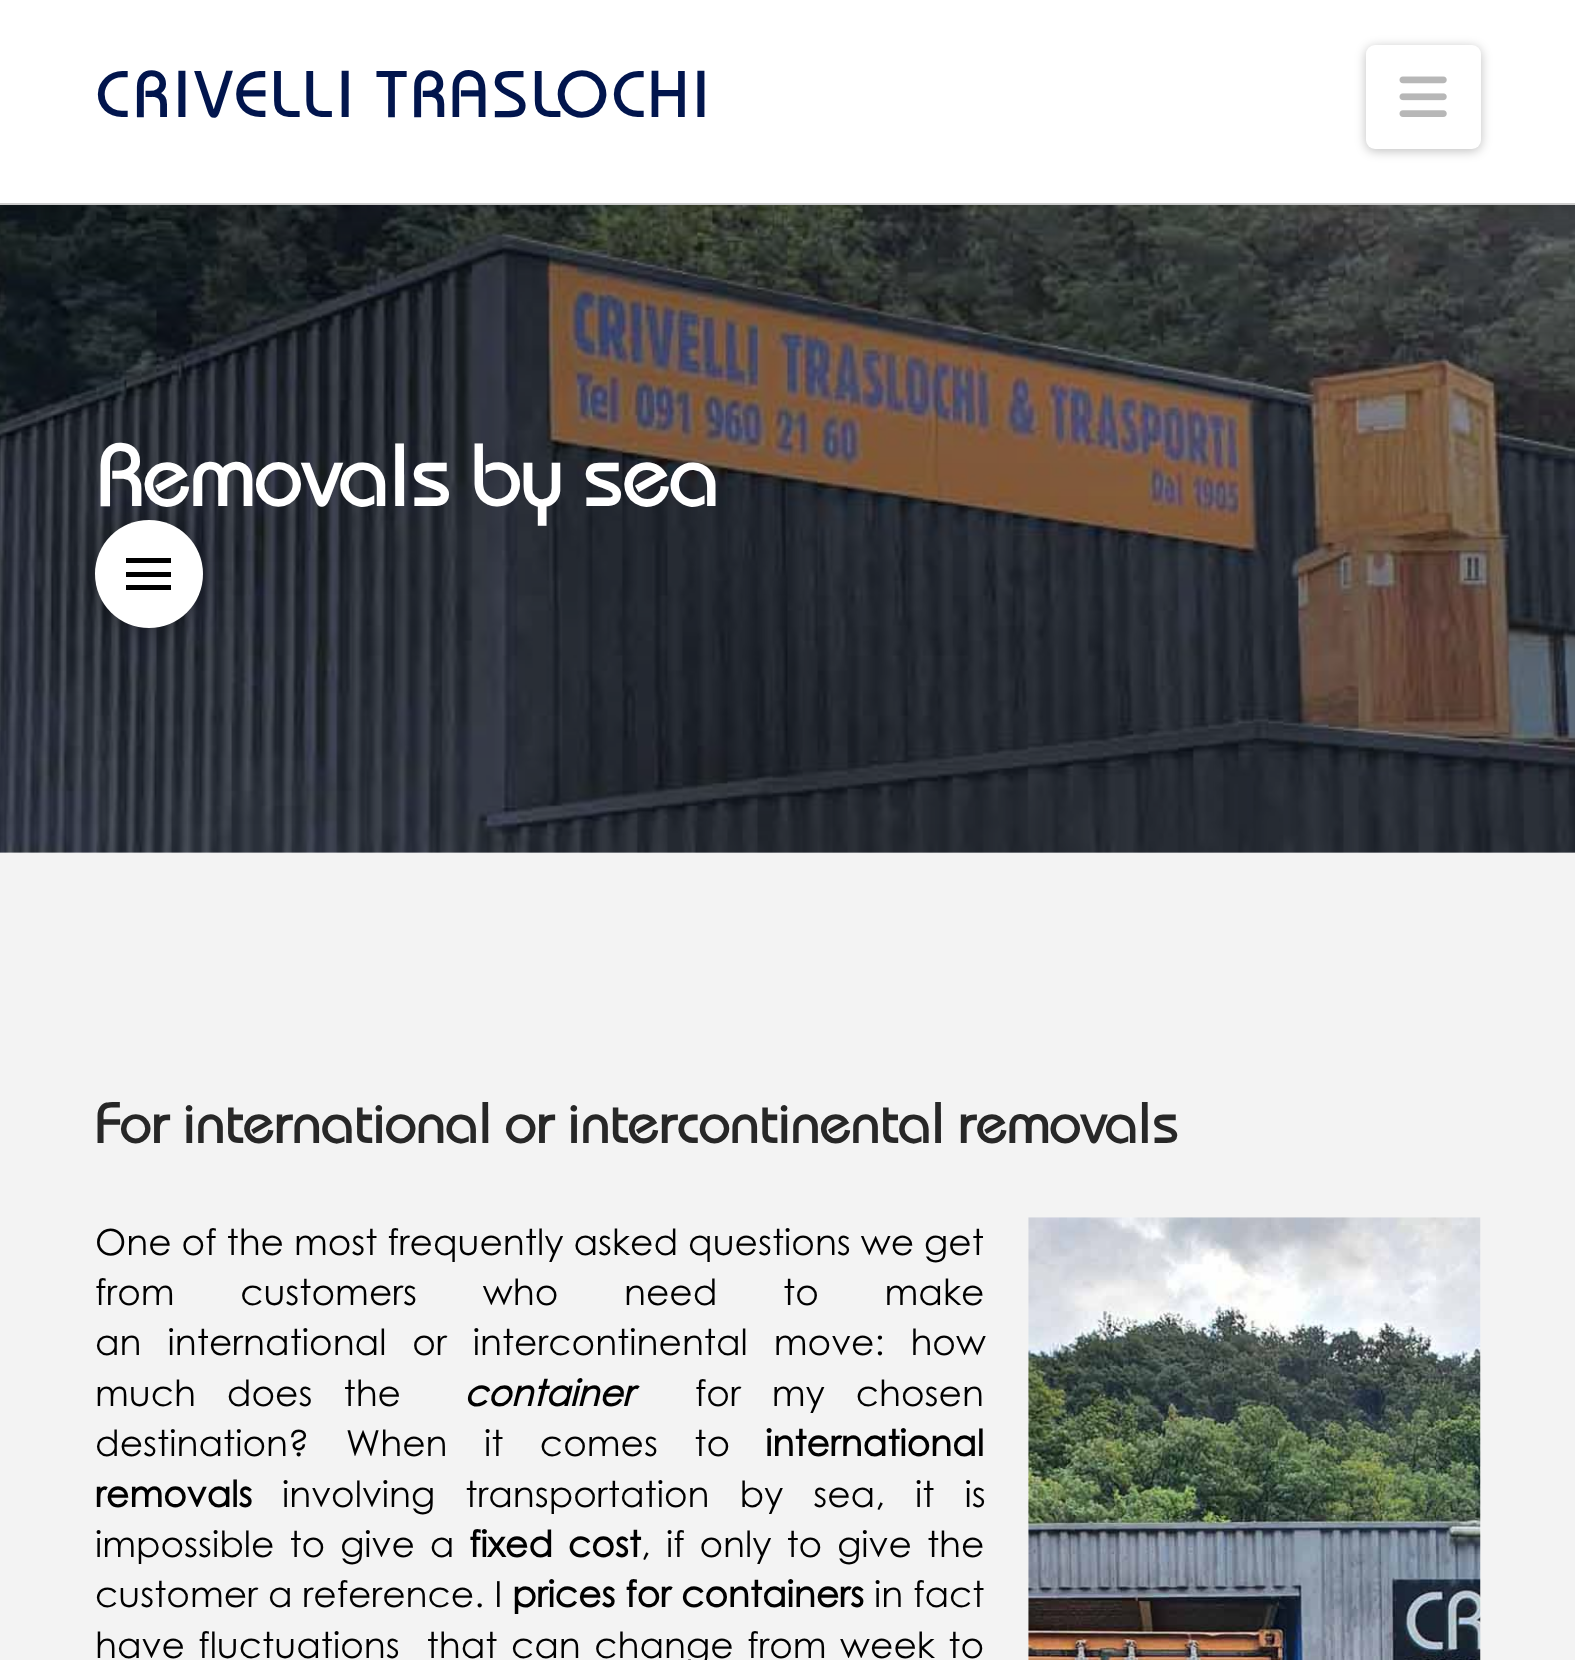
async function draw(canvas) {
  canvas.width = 1575
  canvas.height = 1660
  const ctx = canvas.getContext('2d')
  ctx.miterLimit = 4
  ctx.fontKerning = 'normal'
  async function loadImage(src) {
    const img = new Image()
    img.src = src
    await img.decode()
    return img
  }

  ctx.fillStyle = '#f3f3f3'
  ctx.fillRect(0, 0, 1575, 1660)
  ctx.drawImage(await loadImage('image1.png'), 0, 205, 1575, 648)
  ctx.drawImage(await loadImage('image2.png'), 0, 205, 1575, 648)
  ctx.fillStyle = '#00000021'
  ctx.filter = 'blur(6.5px)'
  ctx.beginPath()
  ctx.rect(0, 5, 1575, 204)
  ctx.fill()
  ctx.filter = 'none'
  ctx.fillStyle = '#fff'
  ctx.fillRect(0, 0, 1575, 203)
  ctx.fillStyle = '#ccc'
  ctx.fillRect(0, 203, 1575, 2)
  ctx.letterSpacing = '3px'
  ctx.font = '500 60.75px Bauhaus'
  ctx.fillStyle = '#01154d'
  ctx.fillText('CRIVELLI TRASLOCHI', 95, 117)
  ctx.fillStyle = '#00000040'
  ctx.filter = 'blur(5.5px)'
  ctx.beginPath()
  ctx.roundRect(1366, 47, 115, 104, 9)
  ctx.fill()
  ctx.filter = 'none'
  ctx.fillStyle = '#fff'
  ctx.beginPath()
  ctx.roundRect(1366, 45, 115, 104, 9)
  ctx.fill()
  ctx.drawImage(await loadImage('image0.png'), 1399, 76, 48, 41)
  ctx.letterSpacing = '-2.9px'
  ctx.font = '500 82.25px Bauhaus'
  ctx.fillText('Removals by sea', 95, 506)
  ctx.fillStyle = '#00000040'
  ctx.filter = 'blur(11.5px)'
  ctx.beginPath()
  ctx.roundRect(95, 524, 108, 108, 54)
  ctx.fill()
  ctx.filter = 'none'
  ctx.fillStyle = '#fff'
  ctx.beginPath()
  ctx.arc(149, 574, 54, 0, 2 * Math.PI)
  ctx.fill()
  ctx.fillStyle = '#000'
  ctx.fillRect(126, 558, 45, 5)
  ctx.fillRect(126, 572, 45, 5)
  ctx.fillRect(126, 585, 45, 5)
  ctx.letterSpacing = '-1.9px'
  ctx.font = '500 54px Bauhaus'
  ctx.fillStyle = '#272727'
  ctx.fillText('For international or intercontinental removals', 95, 1143)
  ctx.letterSpacing = '0px'
  ctx.font = '36px Century Gothic'
  ctx.fillStyle = '#000'
  ctx.fillText('One of the most frequently asked questions we get', 95, 1255)
  ctx.wordSpacing = '55.75px'
  ctx.fillText('from customers who need to make', 95, 1305)
  ctx.wordSpacing = '16px'
  ctx.fillText('an international or intercontinental move: how', 95, 1355)
  ctx.wordSpacing = '21px'
  ctx.fillText('much does the', 95, 1406)
  ctx.wordSpacing = '0px'
  ctx.font = 'italic bold 36px Century Gothic'
  ctx.fillText('container', 464, 1406)
  ctx.wordSpacing = '21px'
  ctx.font = '36px Century Gothic'
  ctx.fillText('for my chosen', 695, 1406)
  ctx.wordSpacing = '26.5px'
  ctx.fillText('destination? When it comes to', 95, 1456)
  ctx.wordSpacing = '0px'
  ctx.font = 'bold 36px Century Gothic'
  ctx.fillText('international', 765, 1456)
  ctx.fillText('removals', 95, 1507)
  ctx.wordSpacing = '20px'
  ctx.font = '36px Century Gothic'
  ctx.fillText('involving transportation by sea, it is', 282, 1507)
  ctx.wordSpacing = '5px'
  ctx.fillText('impossible to give a', 95, 1557)
  ctx.font = 'bold 36px Century Gothic'
  ctx.fillText('fixed cost', 469, 1557)
  ctx.font = '36px Century Gothic'
  ctx.fillText(', if only to give the', 641, 1557)
  ctx.wordSpacing = '0px'
  ctx.fillText('customer a reference. I', 95, 1607)
  ctx.font = 'bold 36px Century Gothic'
  ctx.fillText('prices for containers', 512, 1607)
  ctx.font = '36px Century Gothic'
  ctx.fillText('in fact', 874, 1607)
  ctx.wordSpacing = '3.5px'
  ctx.fillText('have fluctuations  that can change from week to', 95, 1658)
  ctx.drawImage(await loadImage('image3.png'), 1028, 1217, 453, 443)
}

draw(document.querySelector('canvas'))
